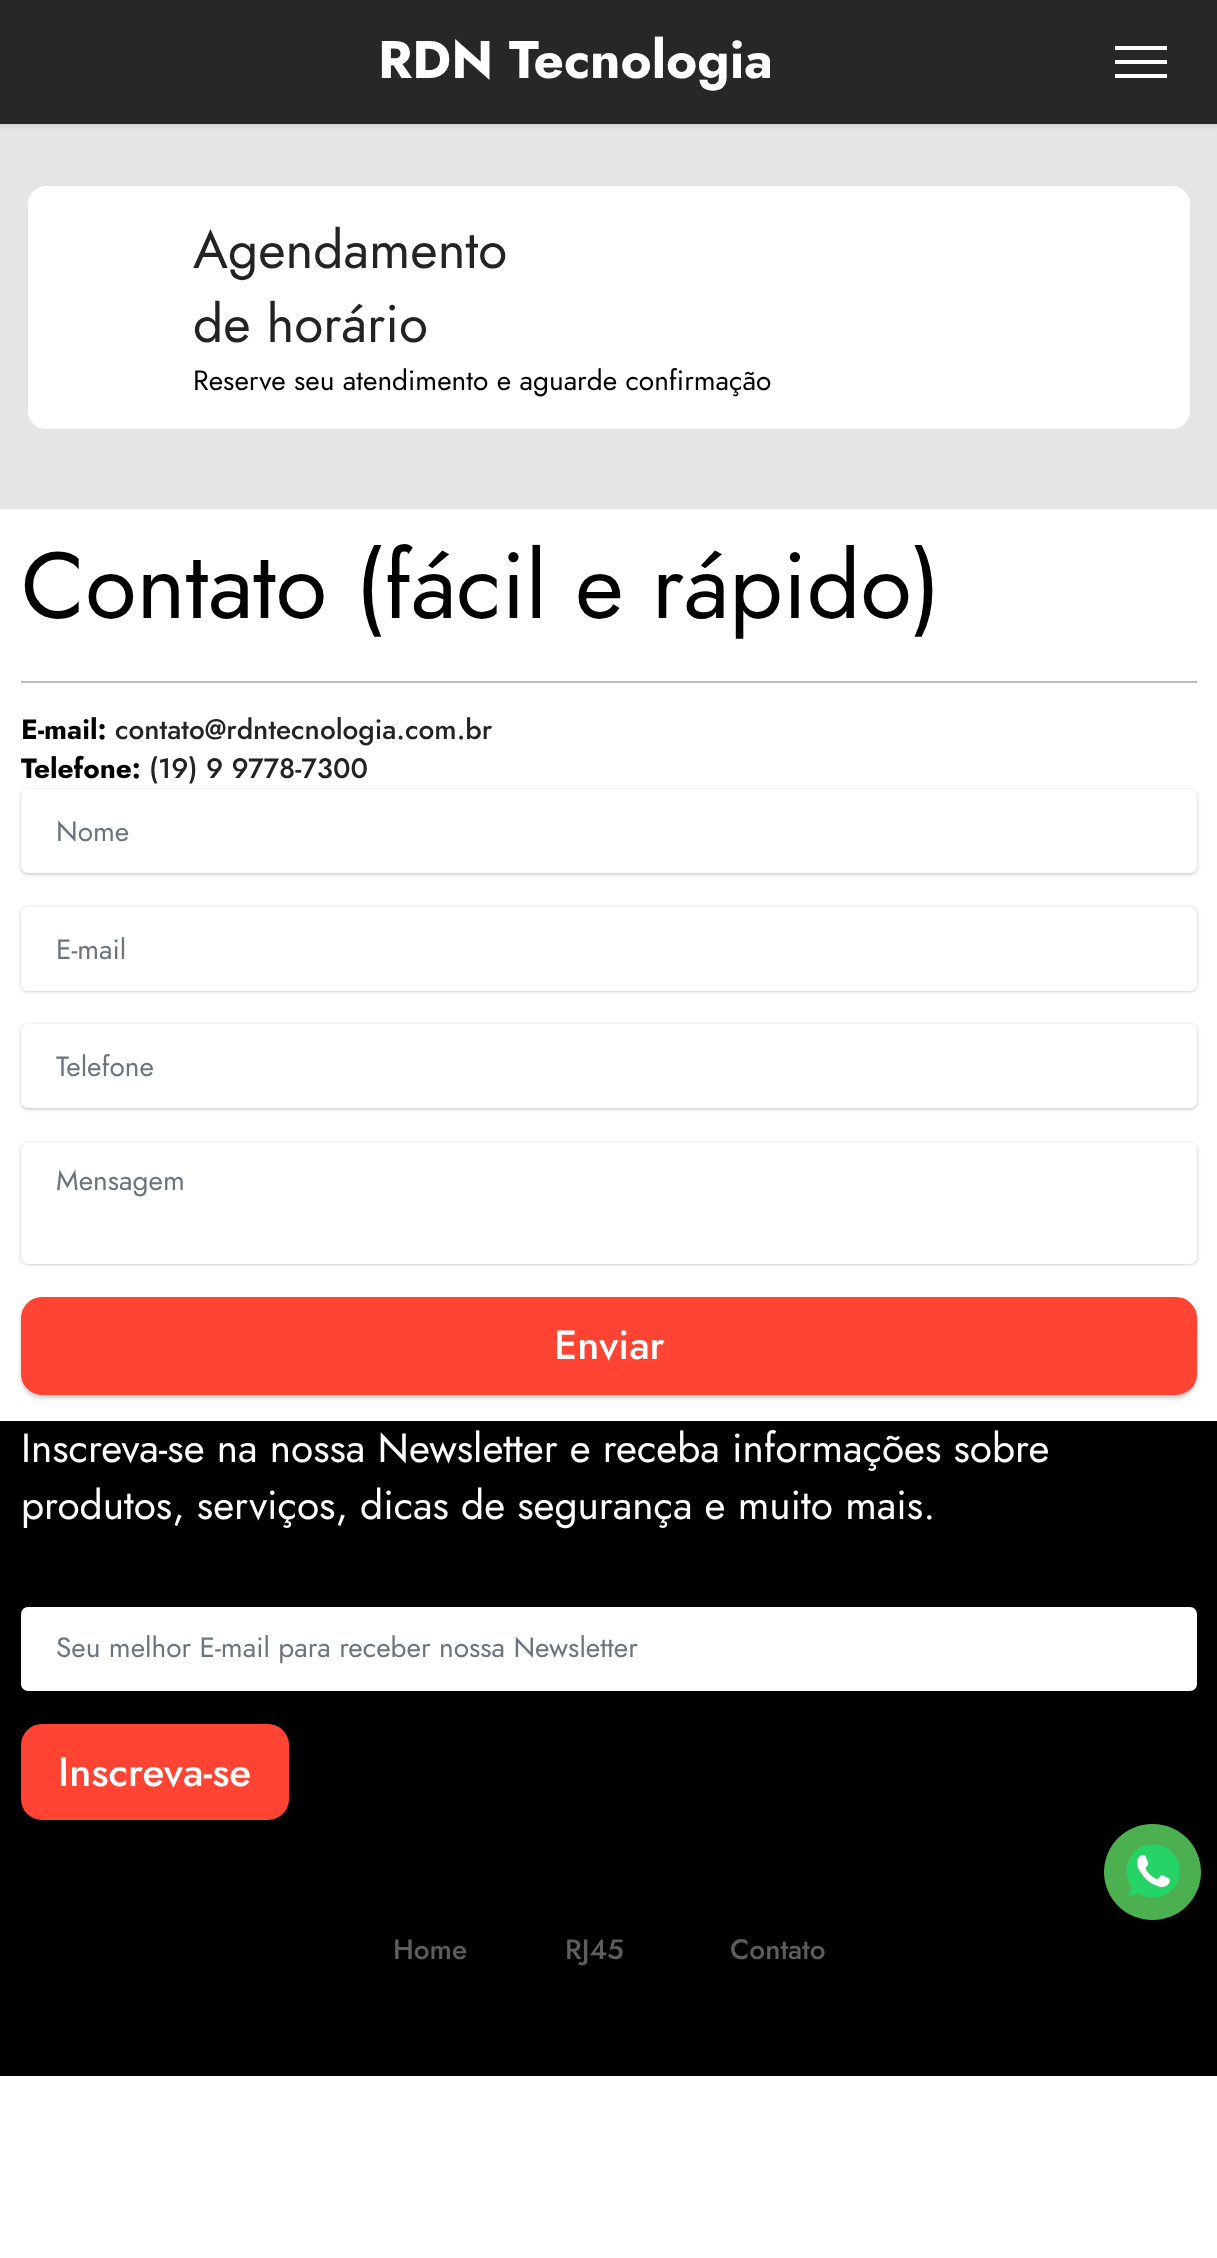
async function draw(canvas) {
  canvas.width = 1217
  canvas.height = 2258
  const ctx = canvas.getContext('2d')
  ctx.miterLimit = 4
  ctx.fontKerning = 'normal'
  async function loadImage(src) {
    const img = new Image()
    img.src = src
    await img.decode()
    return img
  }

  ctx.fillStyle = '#fff'
  ctx.fillRect(0, 0, 1217, 2258)
  ctx.fillStyle = '#e5e5e5'
  ctx.fillRect(0, 124, 1217, 385)
  ctx.fillStyle = '#0000001a'
  ctx.filter = 'blur(2.5px)'
  ctx.beginPath()
  ctx.rect(0, 2, 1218, 124)
  ctx.fill()
  ctx.filter = 'none'
  ctx.fillStyle = '#272727'
  ctx.fillRect(0, 0, 1217, 124)
  ctx.font = 'bold 53px Jost'
  ctx.fillStyle = '#fff'
  ctx.fillText('RDN Tecnologia', 378, 78)
  ctx.fillRect(1115, 46, 52, 4)
  ctx.fillRect(1115, 60, 52, 4)
  ctx.fillRect(1115, 74, 52, 4)
  ctx.beginPath()
  ctx.roundRect(28, 186, 1162, 243, 18)
  ctx.fill()
  ctx.font = '53px Jost'
  ctx.fillStyle = '#232323'
  ctx.fillText('Agendamento', 193, 268)
  ctx.fillText('de horário', 193, 342)
  ctx.font = '28px Jost'
  ctx.fillStyle = '#000'
  ctx.fillText('Reserve seu atendimento e aguarde confirmação', 193, 390)
  ctx.font = '93.75px Jost'
  ctx.fillText('Contato (fácil e rápido)', 21, 618)
  ctx.fillStyle = '#bfbfbf'
  ctx.fillRect(21, 681, 1176, 2)
  ctx.font = 'bold 28px Jost'
  ctx.fillStyle = '#000'
  ctx.fillText('E-mail:', 21, 739)
  ctx.font = '500 28px Jost'
  ctx.fillStyle = '#232323'
  ctx.fillText('contato@rdntecnologia.com.br', 115, 739)
  ctx.font = 'bold 28px Jost'
  ctx.fillStyle = '#000'
  ctx.fillText('Telefone:', 21, 778)
  ctx.beginPath()
  ctx.roundRect(20, 789, 1178, 85, 8)
  ctx.strokeStyle = '#f7f7f7'
  ctx.lineWidth = 2
  ctx.stroke()
  ctx.fillStyle = '#00000012'
  ctx.filter = 'blur(2.5px)'
  ctx.beginPath()
  ctx.roundRect(21, 791, 1176, 84, 7)
  ctx.fill()
  ctx.filter = 'none'
  ctx.font = '500 28px Jost'
  ctx.fillStyle = '#232323'
  ctx.fillText('(19) 9 9778-7300', 149, 778)
  ctx.fillStyle = '#00000012'
  ctx.filter = 'blur(1px)'
  ctx.beginPath()
  ctx.roundRect(21, 791, 1176, 84, 7)
  ctx.fill()
  ctx.filter = 'none'
  ctx.fillStyle = '#fff'
  ctx.beginPath()
  ctx.roundRect(21, 789, 1176, 84, 7)
  ctx.fill()
  ctx.font = '28px Jost'
  ctx.fillStyle = '#6c757d'
  ctx.fillText('Nome', 56, 841)
  ctx.beginPath()
  ctx.roundRect(20, 906, 1178, 85, 8)
  ctx.stroke()
  ctx.fillStyle = '#00000012'
  ctx.filter = 'blur(2.5px)'
  ctx.beginPath()
  ctx.roundRect(21, 908, 1176, 84, 7)
  ctx.fill()
  ctx.filter = 'none'
  ctx.filter = 'blur(1px)'
  ctx.beginPath()
  ctx.roundRect(21, 908, 1176, 84, 7)
  ctx.fill()
  ctx.filter = 'none'
  ctx.fillStyle = '#fff'
  ctx.beginPath()
  ctx.roundRect(21, 907, 1176, 84, 7)
  ctx.fill()
  ctx.fillStyle = '#6c757d'
  ctx.fillText('E-mail', 56, 959)
  ctx.beginPath()
  ctx.roundRect(20, 1023, 1178, 86, 8)
  ctx.stroke()
  ctx.fillStyle = '#00000012'
  ctx.filter = 'blur(2.5px)'
  ctx.beginPath()
  ctx.roundRect(21, 1026, 1176, 84, 7)
  ctx.fill()
  ctx.filter = 'none'
  ctx.filter = 'blur(1px)'
  ctx.beginPath()
  ctx.roundRect(21, 1026, 1176, 84, 7)
  ctx.fill()
  ctx.filter = 'none'
  ctx.fillStyle = '#fff'
  ctx.beginPath()
  ctx.roundRect(21, 1024, 1176, 84, 7)
  ctx.fill()
  ctx.fillStyle = '#6c757d'
  ctx.fillText('Telefone', 56, 1076)
  ctx.beginPath()
  ctx.roundRect(20, 1142, 1178, 122, 8)
  ctx.stroke()
  ctx.fillStyle = '#00000012'
  ctx.filter = 'blur(2.5px)'
  ctx.beginPath()
  ctx.roundRect(21, 1145, 1176, 120, 7)
  ctx.fill()
  ctx.filter = 'none'
  ctx.filter = 'blur(1px)'
  ctx.beginPath()
  ctx.roundRect(21, 1145, 1176, 120, 7)
  ctx.fill()
  ctx.filter = 'none'
  ctx.fillStyle = '#fff'
  ctx.beginPath()
  ctx.roundRect(21, 1143, 1176, 121, 7)
  ctx.fill()
  ctx.fillStyle = '#6c757d'
  ctx.fillText('Mensagem', 56, 1190)
  ctx.fillStyle = '#00000033'
  ctx.filter = 'blur(2px)'
  ctx.beginPath()
  ctx.roundRect(21, 1300, 1176, 98, 21)
  ctx.fill()
  ctx.filter = 'none'
  ctx.fillStyle = '#f43'
  ctx.beginPath()
  ctx.roundRect(23, 1299, 1172, 94, 19)
  ctx.fill()
  ctx.strokeStyle = '#f43'
  ctx.lineWidth = 4
  ctx.stroke()
  ctx.font = '500 40.55px Jost'
  ctx.fillStyle = '#fff'
  ctx.fillText('Enviar', 554, 1359)
  ctx.fillStyle = '#000'
  ctx.fillRect(0, 1421, 1217, 655)
  ctx.font = '40.55px Jost'
  ctx.fillStyle = '#fff'
  ctx.fillText('Inscreva-se na nossa Newsletter e receba informações sobre', 21, 1462)
  ctx.fillText('produtos, serviços, dicas de segurança e muito mais.', 21, 1519)
  ctx.beginPath()
  ctx.roundRect(21, 1607, 1176, 84, 7)
  ctx.fill()
  ctx.font = '28px Jost'
  ctx.fillStyle = '#6c757d'
  ctx.fillText('Seu melhor E-mail para receber nossa Newsletter', 56, 1657)
  ctx.fillStyle = '#f43'
  ctx.beginPath()
  ctx.roundRect(23, 1726, 264, 92, 19)
  ctx.fill()
  ctx.stroke()
  ctx.font = '500 40.55px Jost'
  ctx.fillStyle = '#fff'
  ctx.fillText('Inscreva-se', 58, 1786)
  ctx.fillStyle = '#4caf50'
  ctx.beginPath()
  ctx.roundRect(1104, 1824, 97, 96, 48)
  ctx.fill()
  ctx.drawImage(await loadImage('image0.png'), 1126, 1844, 54, 54)
  ctx.font = '500 28px Jost'
  ctx.fillStyle = '#5e5e5e'
  ctx.fillText('Home', 393, 1959)
  ctx.fillText('RJ45', 565, 1959)
  ctx.fillText('Contato', 730, 1959)
}

draw(document.querySelector('canvas'))
